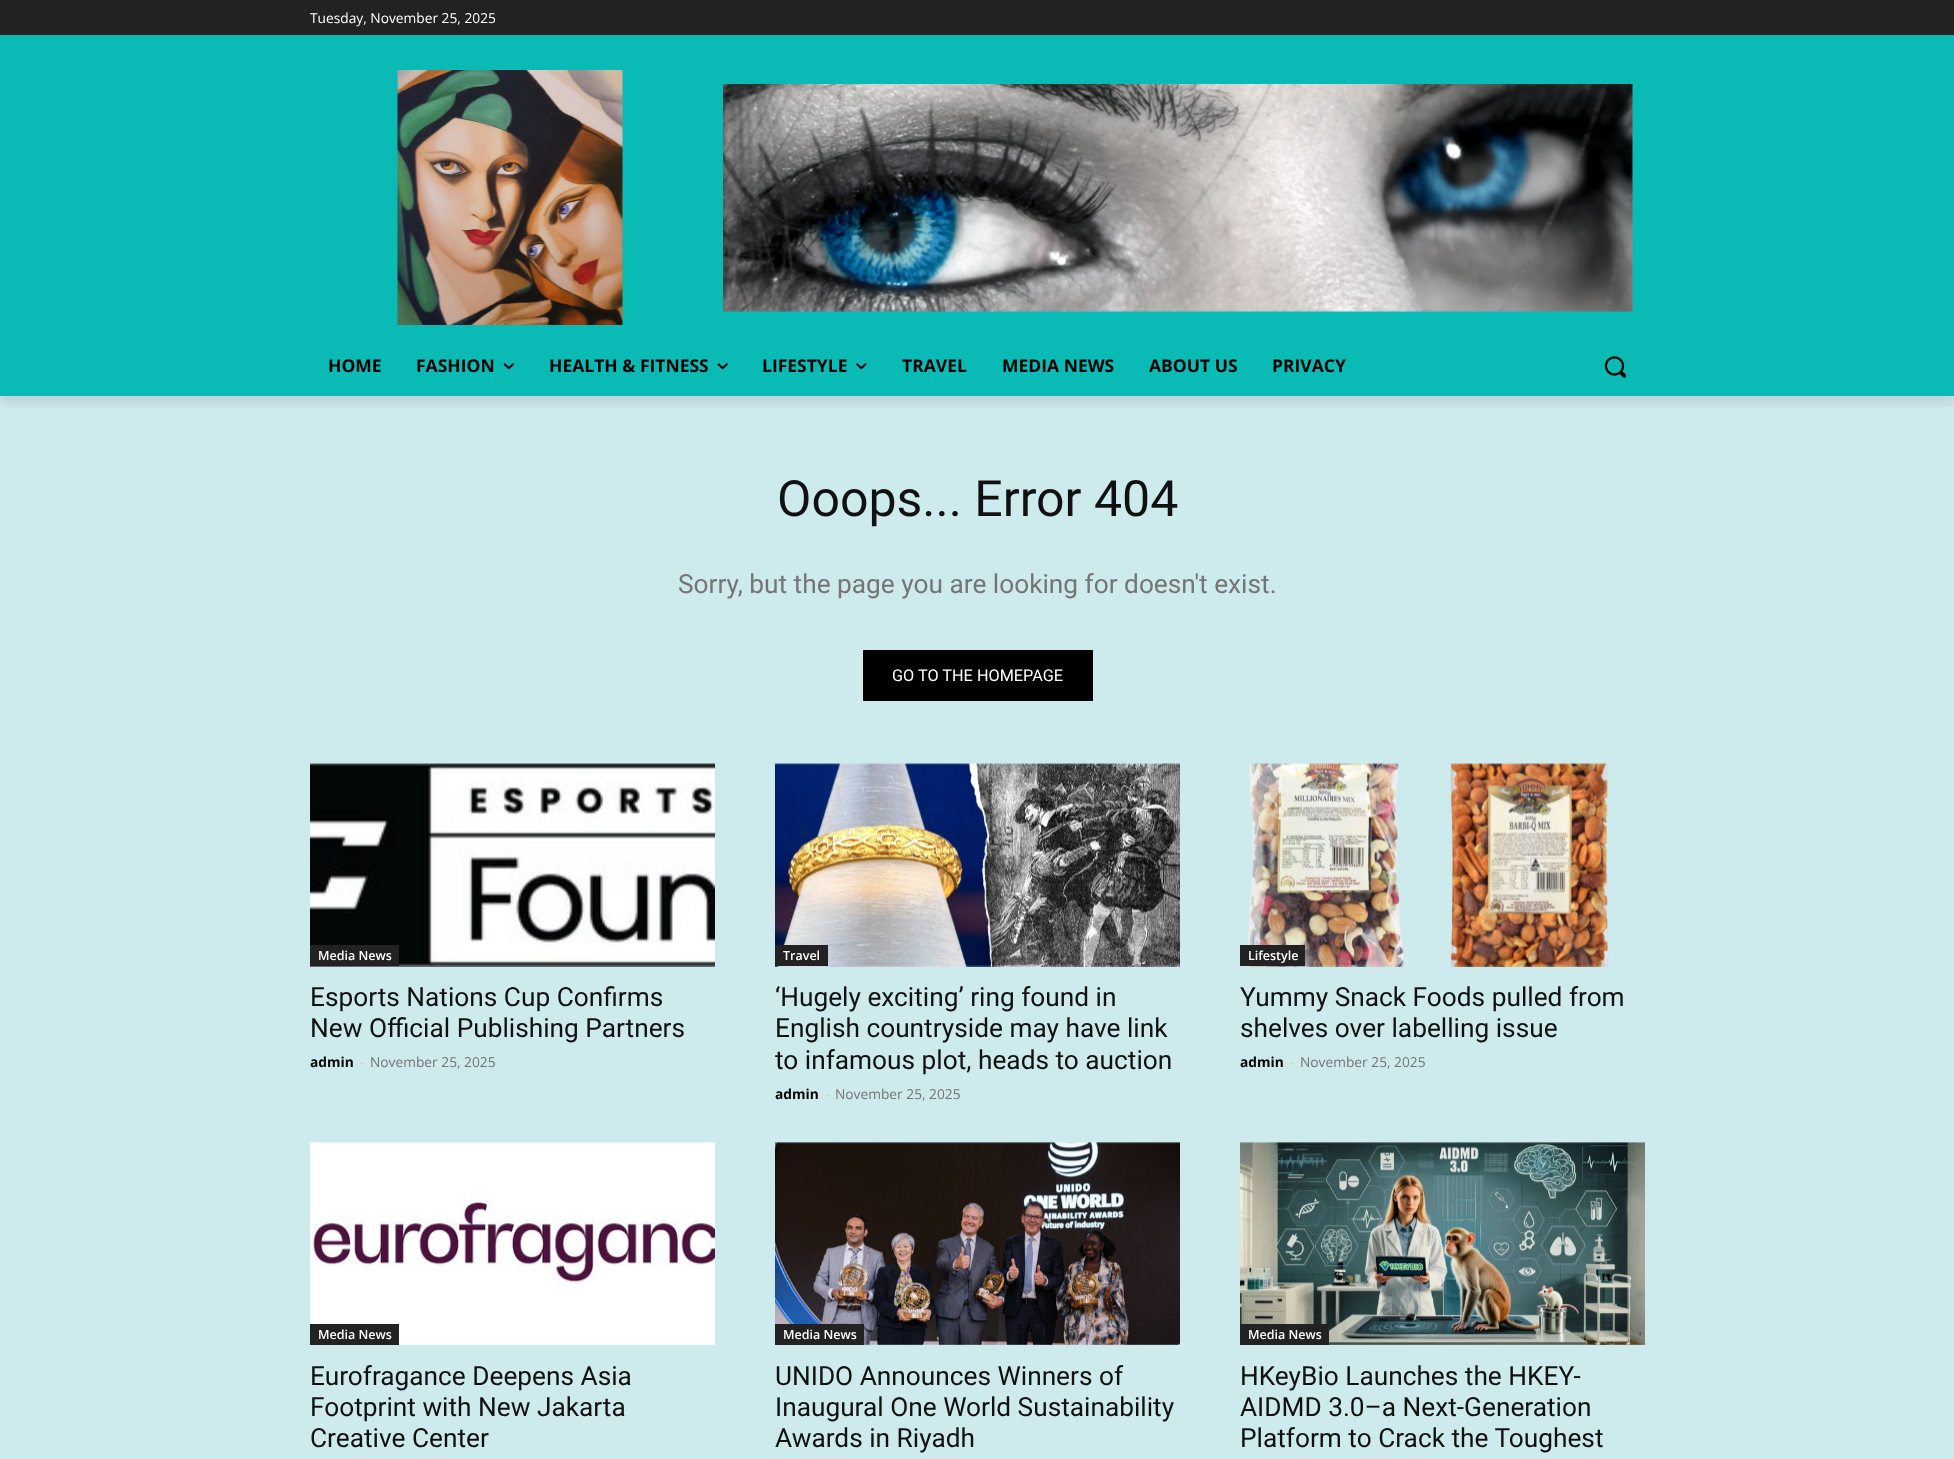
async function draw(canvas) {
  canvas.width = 1954
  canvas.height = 1459
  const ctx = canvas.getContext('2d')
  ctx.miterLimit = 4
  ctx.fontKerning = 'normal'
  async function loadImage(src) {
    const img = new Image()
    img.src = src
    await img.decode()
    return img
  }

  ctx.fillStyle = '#cdeaed'
  ctx.fillRect(0, 0, 1954, 1459)
  ctx.fillStyle = '#222'
  ctx.fillRect(0, 0, 1954, 35)
  ctx.fillStyle = '#0abab5'
  ctx.fillRect(0, 35, 1954, 361)
  ctx.drawImage(await loadImage('image0.png'), 397, 70, 226, 255)
  ctx.drawImage(await loadImage('image1.png'), 723, 84, 910, 228)
  ctx.save()
  ctx.beginPath()
  ctx.rect(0, 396, 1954, 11)
  ctx.clip()
  ctx.fillStyle = '#00000014'
  ctx.filter = 'blur(5px)'
  ctx.beginPath()
  ctx.rect(0, 8, 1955, 396)
  ctx.fill()
  ctx.filter = 'none'
  ctx.restore()
  ctx.font = '13.75px Open Sans'
  ctx.fillStyle = '#fff'
  ctx.fillText('Tuesday, November 25, 2025', 310, 23)
  ctx.font = 'bold 17.5px Open Sans'
  ctx.fillStyle = '#000'
  ctx.fillText('HOME', 328, 372)
  ctx.fillText('FASHION', 416, 372)
  ctx.drawImage(await loadImage('image2.png'), 503, 363, 11, 7)
  ctx.fillText('HEALTH & FITNESS', 549, 372)
  ctx.drawImage(await loadImage('image3.png'), 717, 363, 11, 7)
  ctx.fillText('LIFESTYLE', 762, 372)
  ctx.drawImage(await loadImage('image4.png'), 856, 363, 11, 7)
  ctx.fillText('TRAVEL', 902, 372)
  ctx.fillText('MEDIA NEWS', 1002, 372)
  ctx.fillText('ABOUT US', 1149, 372)
  ctx.fillText('PRIVACY', 1272, 372)
  ctx.drawImage(await loadImage('image5.png'), 1604, 356, 23, 22)
  ctx.font = '50px Roboto'
  ctx.fillStyle = '#111'
  ctx.fillText('Ooops... Error 404', 777, 516)
  ctx.font = '26.25px Roboto'
  ctx.fillStyle = '#757575'
  ctx.fillText('Sorry, but the page you are looking for doesn\'t exist.', 678, 593)
  ctx.fillStyle = '#000'
  ctx.fillRect(863, 650, 230, 51)
  ctx.font = '16.25px Roboto'
  ctx.fillStyle = '#fff'
  ctx.fillText('GO TO THE HOMEPAGE', 892, 681)
  ctx.drawImage(await loadImage('image6.png'), 310, 763, 405, 204)
  ctx.fillStyle = '#222'
  ctx.fillRect(310, 945, 89, 21)
  ctx.font = '600 12.5px Open Sans'
  ctx.fillStyle = '#fff'
  ctx.fillText('Media News', 318, 960)
  ctx.font = '26.25px Roboto'
  ctx.fillStyle = '#111'
  ctx.fillText('Esports Nations Cup Confirms', 310, 1006)
  ctx.fillText('New Official Publishing Partners', 310, 1037)
  ctx.font = 'bold 13.75px Open Sans'
  ctx.fillStyle = '#000'
  ctx.fillText('admin', 310, 1067)
  ctx.font = '13.75px Open Sans'
  ctx.fillStyle = '#ccc'
  ctx.fillText('-', 360, 1067)
  ctx.fillStyle = '#757575'
  ctx.fillText('November 25, 2025', 370, 1067)
  ctx.drawImage(await loadImage('image7.png'), 775, 763, 405, 204)
  ctx.fillStyle = '#222'
  ctx.fillRect(775, 945, 53, 21)
  ctx.font = '600 12.5px Open Sans'
  ctx.fillStyle = '#fff'
  ctx.fillText('Travel', 783, 960)
  ctx.font = '26.25px Roboto'
  ctx.fillStyle = '#111'
  ctx.fillText('‘Hugely exciting’ ring found in', 775, 1006)
  ctx.fillText('English countryside may have link', 775, 1037)
  ctx.fillText('to infamous plot, heads to auction', 775, 1069)
  ctx.font = 'bold 13.75px Open Sans'
  ctx.fillStyle = '#000'
  ctx.fillText('admin', 775, 1099)
  ctx.font = '13.75px Open Sans'
  ctx.fillStyle = '#ccc'
  ctx.fillText('-', 825, 1099)
  ctx.fillStyle = '#757575'
  ctx.fillText('November 25, 2025', 835, 1099)
  ctx.drawImage(await loadImage('image8.png'), 1247, 763, 362, 204)
  ctx.fillStyle = '#222'
  ctx.fillRect(1240, 945, 65, 21)
  ctx.font = '600 12.5px Open Sans'
  ctx.fillStyle = '#fff'
  ctx.fillText('Lifestyle', 1248, 960)
  ctx.font = '26.25px Roboto'
  ctx.fillStyle = '#111'
  ctx.fillText('Yummy Snack Foods pulled from', 1240, 1006)
  ctx.fillText('shelves over labelling issue', 1240, 1037)
  ctx.font = 'bold 13.75px Open Sans'
  ctx.fillStyle = '#000'
  ctx.fillText('admin', 1240, 1067)
  ctx.font = '13.75px Open Sans'
  ctx.fillStyle = '#ccc'
  ctx.fillText('-', 1290, 1067)
  ctx.fillStyle = '#757575'
  ctx.fillText('November 25, 2025', 1300, 1067)
  ctx.drawImage(await loadImage('image9.png'), 310, 1142, 405, 203)
  ctx.fillStyle = '#222'
  ctx.fillRect(310, 1324, 89, 21)
  ctx.font = '600 12.5px Open Sans'
  ctx.fillStyle = '#fff'
  ctx.fillText('Media News', 318, 1339)
  ctx.font = '26.25px Roboto'
  ctx.fillStyle = '#111'
  ctx.fillText('Eurofragance Deepens Asia', 310, 1385)
  ctx.fillText('Footprint with New Jakarta', 310, 1416)
  ctx.fillText('Creative Center', 310, 1447)
  ctx.drawImage(await loadImage('image10.png'), 775, 1142, 405, 203)
  ctx.fillStyle = '#222'
  ctx.fillRect(775, 1324, 89, 21)
  ctx.font = '600 12.5px Open Sans'
  ctx.fillStyle = '#fff'
  ctx.fillText('Media News', 783, 1339)
  ctx.font = '26.25px Roboto'
  ctx.fillStyle = '#111'
  ctx.fillText('UNIDO Announces Winners of', 775, 1385)
  ctx.fillText('Inaugural One World Sustainability', 775, 1416)
  ctx.fillText('Awards in Riyadh', 775, 1447)
  ctx.drawImage(await loadImage('image11.png'), 1240, 1142, 405, 203)
  ctx.fillStyle = '#222'
  ctx.fillRect(1240, 1324, 89, 21)
  ctx.font = '600 12.5px Open Sans'
  ctx.fillStyle = '#fff'
  ctx.fillText('Media News', 1248, 1339)
  ctx.font = '26.25px Roboto'
  ctx.fillStyle = '#111'
  ctx.fillText('HKeyBio Launches the HKEY-', 1240, 1385)
  ctx.fillText('AIDMD 3.0–a Next-Generation', 1240, 1416)
  ctx.fillText('Platform to Crack the Toughest', 1240, 1447)
}

draw(document.querySelector('canvas'))
